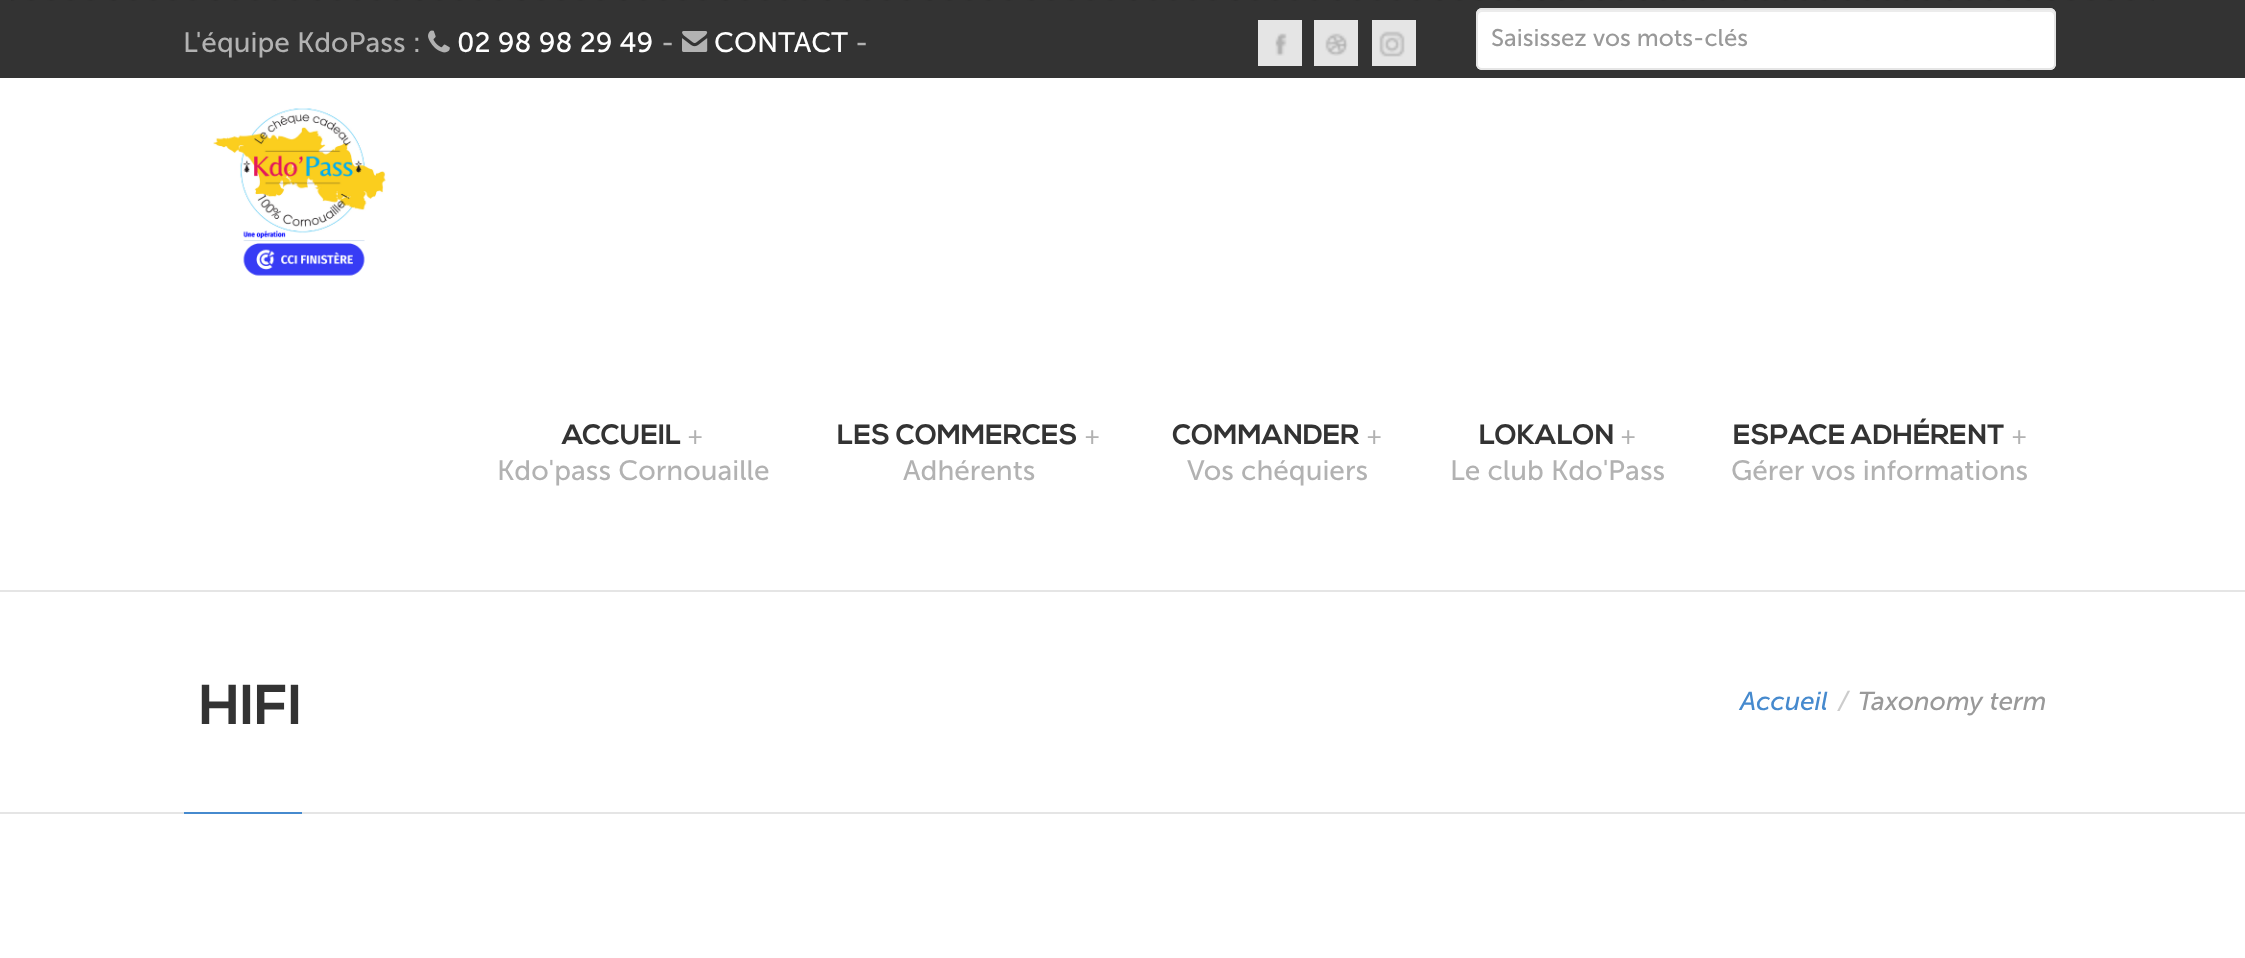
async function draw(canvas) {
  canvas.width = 2245
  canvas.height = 958
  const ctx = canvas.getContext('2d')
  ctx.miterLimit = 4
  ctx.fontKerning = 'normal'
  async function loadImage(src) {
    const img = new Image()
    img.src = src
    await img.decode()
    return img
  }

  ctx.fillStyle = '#fff'
  ctx.fillRect(0, 0, 2245, 958)
  ctx.fillStyle = '#333'
  ctx.fillRect(0, 0, 2245, 78)
  ctx.drawImage(await loadImage('image0.png'), 11, 0, 2143, 1)
  ctx.font = '28px Museo Sans'
  ctx.fillStyle = '#b2b2b2'
  ctx.fillText('L\'équipe KdoPass :', 183, 52)
  ctx.drawImage(await loadImage('image1.png'), 428, 30, 22, 23)
  ctx.fillStyle = '#fff'
  ctx.fillText('02 98 98 29 49', 457, 52)
  ctx.fillStyle = '#b2b2b2'
  ctx.fillText('-', 661, 52)
  ctx.drawImage(await loadImage('image2.png'), 682, 31, 26, 21)
  ctx.fillStyle = '#fff'
  ctx.fillText('CONTACT', 714, 52)
  ctx.fillStyle = '#b2b2b2'
  ctx.fillText('-', 855, 52)
  ctx.fillStyle = '#e5e5e5'
  ctx.fillRect(1258, 20, 44, 46)
  ctx.drawImage(await loadImage('image3.png'), 1275, 33, 12, 23)
  ctx.fillRect(1314, 20, 44, 46)
  ctx.drawImage(await loadImage('image4.png'), 1325, 33, 23, 23)
  ctx.fillRect(1372, 20, 44, 46)
  ctx.drawImage(await loadImage('image5.png'), 1379, 31, 26, 26)
  ctx.fillStyle = '#fff'
  ctx.beginPath()
  ctx.roundRect(1476, 8, 580, 62, 6)
  ctx.fill()
  ctx.fillStyle = '#ececec'
  ctx.beginPath()
  ctx.moveTo(1482, 12)
  ctx.lineTo(2050, 12)
  ctx.bezierCurveTo(2052, 12, 2054, 14, 2054, 16)
  ctx.lineTo(2054, 14)
  ctx.bezierCurveTo(2054, 12, 2052, 10, 2050, 10)
  ctx.lineTo(1482, 10)
  ctx.bezierCurveTo(1480, 10, 1478, 12, 1478, 14)
  ctx.lineTo(1478, 16)
  ctx.bezierCurveTo(1478, 14, 1480, 12, 1482, 12)
  ctx.closePath()
  ctx.fill()
  ctx.beginPath()
  ctx.roundRect(1477, 9, 578, 60, 5)
  ctx.strokeStyle = '#e5e5e5'
  ctx.lineWidth = 2
  ctx.stroke()
  ctx.font = '24px Museo Sans'
  ctx.fillStyle = '#999'
  ctx.fillText('Saisissez vos mots-clés', 1491, 46)
  ctx.drawImage(await loadImage('image6.png'), 213, 108, 173, 168)
  ctx.font = 'bold 28px "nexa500"'
  ctx.fillStyle = '#333'
  ctx.fillText('ACCUEIL', 562, 444)
  ctx.font = '24px Museo Sans'
  ctx.fillStyle = '#b2b2b2'
  ctx.fillText('+', 687, 444)
  ctx.font = '28px Museo Sans'
  ctx.fillText('Kdo\'pass Cornouaille', 497, 480)
  ctx.font = 'bold 28px "nexa500"'
  ctx.fillStyle = '#333'
  ctx.fillText('LES COMMERCES', 837, 444)
  ctx.font = '24px Museo Sans'
  ctx.fillStyle = '#b2b2b2'
  ctx.fillText('+', 1084, 444)
  ctx.font = '28px Museo Sans'
  ctx.fillText('Adhérents', 903, 480)
  ctx.font = 'bold 28px "nexa500"'
  ctx.fillStyle = '#333'
  ctx.fillText('COMMANDER', 1172, 444)
  ctx.font = '24px Museo Sans'
  ctx.fillStyle = '#b2b2b2'
  ctx.fillText('+', 1366, 444)
  ctx.font = '28px Museo Sans'
  ctx.fillText('Vos chéquiers', 1187, 480)
  ctx.font = 'bold 28px "nexa500"'
  ctx.fillStyle = '#333'
  ctx.fillText('LOKALON', 1479, 444)
  ctx.font = '24px Museo Sans'
  ctx.fillStyle = '#b2b2b2'
  ctx.fillText('+', 1620, 444)
  ctx.font = '28px Museo Sans'
  ctx.fillText('Le club Kdo\'Pass', 1450, 480)
  ctx.font = 'bold 28px "nexa500"'
  ctx.fillStyle = '#333'
  ctx.fillText('ESPACE ADHÉRENT', 1733, 444)
  ctx.font = '24px Museo Sans'
  ctx.fillStyle = '#b2b2b2'
  ctx.fillText('+', 2011, 444)
  ctx.font = '28px Museo Sans'
  ctx.fillText('Gérer vos informations', 1731, 480)
  ctx.fillStyle = '#e5e5e5'
  ctx.fillRect(0, 590, 2245, 2)
  ctx.fillRect(0, 812, 2245, 2)
  ctx.fillStyle = '#468ace'
  ctx.fillRect(184, 812, 118, 2)
  ctx.font = 'bold 56px "nexa500"'
  ctx.fillStyle = '#333'
  ctx.fillText('HIFI', 199, 724)
  ctx.font = 'italic 26px Museo Sans'
  ctx.fillStyle = '#468ace'
  ctx.fillText('Accueil', 1740, 710)
  ctx.fillStyle = '#ccc'
  ctx.fillText('/', 1838, 710)
  ctx.fillStyle = '#999'
  ctx.fillText('Taxonomy term', 1858, 710)
}

draw(document.querySelector('canvas'))
